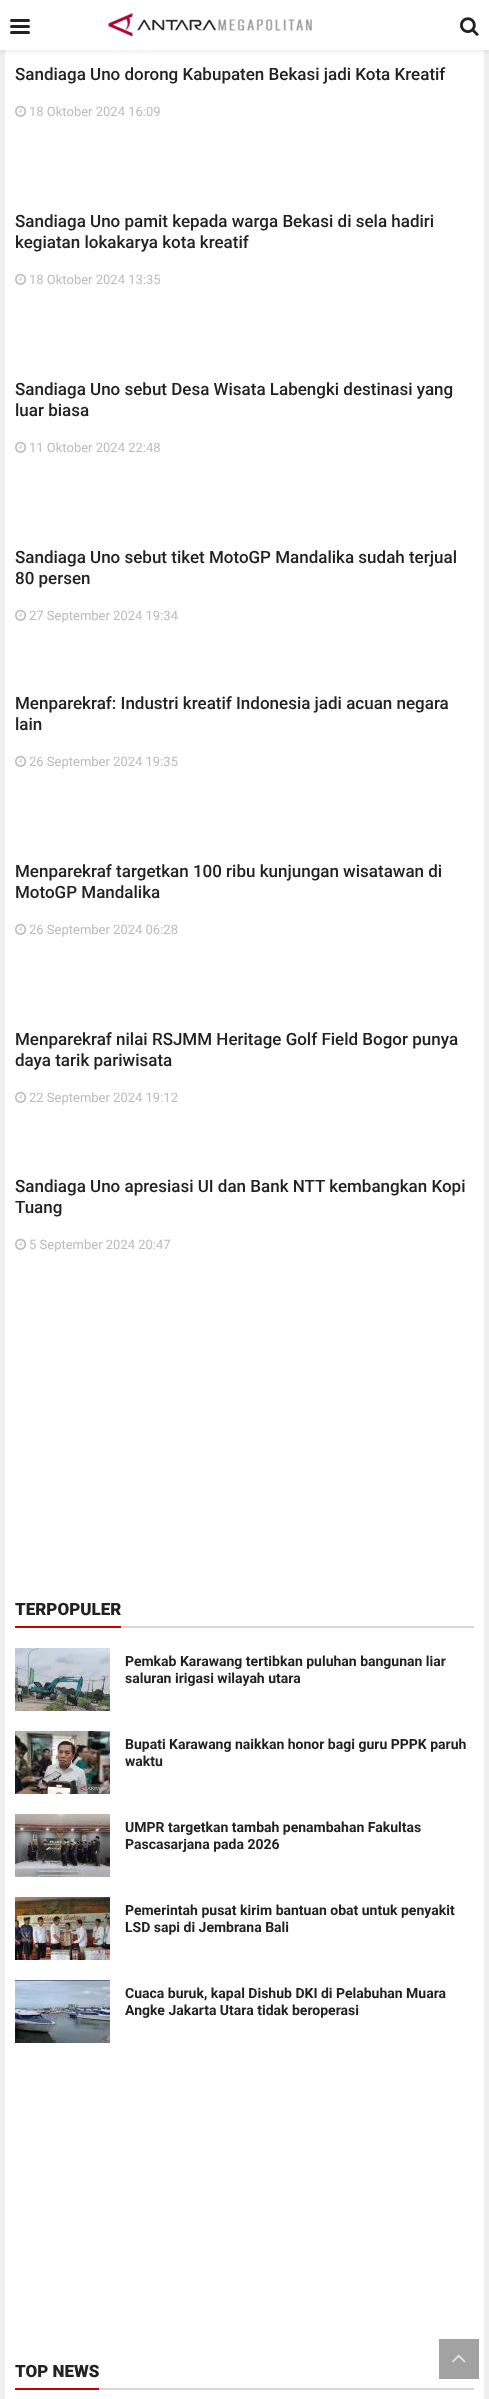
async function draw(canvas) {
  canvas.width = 489
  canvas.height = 2399
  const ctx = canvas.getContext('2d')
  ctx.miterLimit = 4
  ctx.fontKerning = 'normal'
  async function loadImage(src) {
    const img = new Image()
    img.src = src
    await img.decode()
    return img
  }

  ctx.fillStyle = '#efefef'
  ctx.fillRect(0, 0, 489, 2399)
  ctx.fillStyle = '#fff'
  ctx.fillRect(5, 50, 479, 2349)
  ctx.fillStyle = '#0000000d'
  ctx.filter = 'blur(1px)'
  ctx.beginPath()
  ctx.rect(0, 3, 489, 50)
  ctx.fill()
  ctx.filter = 'none'
  ctx.fillStyle = '#fff'
  ctx.fillRect(0, 0, 489, 50)
  ctx.fillStyle = '#222'
  ctx.beginPath()
  ctx.roundRect(10, 19, 20, 3, 1.5)
  ctx.fill()
  ctx.beginPath()
  ctx.roundRect(10, 25, 20, 3, 1.5)
  ctx.fill()
  ctx.beginPath()
  ctx.roundRect(10, 31, 20, 3, 1.5)
  ctx.fill()
  ctx.drawImage(await loadImage('image0.png'), 108, 13, 204, 24)
  ctx.drawImage(await loadImage('image1.png'), 460, 17, 19, 19)
  ctx.font = '500 17px Roboto'
  ctx.fillText('Sandiaga Uno dorong Kabupaten Bekasi jadi Kota Kreatif', 15, 80)
  ctx.drawImage(await loadImage('image2.png'), 15, 105, 12, 12)
  ctx.font = '13px Roboto'
  ctx.fillStyle = '#bbb'
  ctx.fillText('18 Oktober 2024 16:09', 29, 116)
  ctx.font = '500 17px Roboto'
  ctx.fillStyle = '#222'
  ctx.fillText('Sandiaga Uno pamit kepada warga Bekasi di sela hadiri', 15, 227)
  ctx.fillText('kegiatan lokakarya kota kreatif', 15, 248)
  ctx.drawImage(await loadImage('image2.png'), 15, 273, 12, 12)
  ctx.font = '13px Roboto'
  ctx.fillStyle = '#bbb'
  ctx.fillText('18 Oktober 2024 13:35', 29, 284)
  ctx.font = '500 17px Roboto'
  ctx.fillStyle = '#222'
  ctx.fillText('Sandiaga Uno sebut Desa Wisata Labengki destinasi yang', 15, 395)
  ctx.fillText('luar biasa', 15, 416)
  ctx.drawImage(await loadImage('image2.png'), 15, 441, 12, 12)
  ctx.font = '13px Roboto'
  ctx.fillStyle = '#bbb'
  ctx.fillText('11 Oktober 2024 22:48', 29, 452)
  ctx.font = '500 17px Roboto'
  ctx.fillStyle = '#222'
  ctx.fillText('Sandiaga Uno sebut tiket MotoGP Mandalika sudah terjual', 15, 563)
  ctx.fillText('80 persen', 15, 584)
  ctx.drawImage(await loadImage('image2.png'), 15, 609, 12, 12)
  ctx.font = '13px Roboto'
  ctx.fillStyle = '#bbb'
  ctx.fillText('27 September 2024 19:34', 29, 620)
  ctx.font = '500 17px Roboto'
  ctx.fillStyle = '#222'
  ctx.fillText('Menparekraf: Industri kreatif Indonesia jadi acuan negara', 15, 709)
  ctx.fillText('lain', 15, 730)
  ctx.drawImage(await loadImage('image2.png'), 15, 755, 12, 12)
  ctx.font = '13px Roboto'
  ctx.fillStyle = '#bbb'
  ctx.fillText('26 September 2024 19:35', 29, 766)
  ctx.font = '500 17px Roboto'
  ctx.fillStyle = '#222'
  ctx.fillText('Menparekraf targetkan 100 ribu kunjungan wisatawan di', 15, 877)
  ctx.fillText('MotoGP Mandalika', 15, 898)
  ctx.drawImage(await loadImage('image2.png'), 15, 923, 12, 12)
  ctx.font = '13px Roboto'
  ctx.fillStyle = '#bbb'
  ctx.fillText('26 September 2024 06:28', 29, 934)
  ctx.font = '500 17px Roboto'
  ctx.fillStyle = '#222'
  ctx.fillText('Menparekraf nilai RSJMM Heritage Golf Field Bogor punya', 15, 1045)
  ctx.fillText('daya tarik pariwisata', 15, 1066)
  ctx.drawImage(await loadImage('image2.png'), 15, 1091, 12, 12)
  ctx.font = '13px Roboto'
  ctx.fillStyle = '#bbb'
  ctx.fillText('22 September 2024 19:12', 29, 1102)
  ctx.font = '500 17px Roboto'
  ctx.fillStyle = '#222'
  ctx.fillText('Sandiaga Uno apresiasi UI dan Bank NTT kembangkan Kopi', 15, 1192)
  ctx.fillText('Tuang', 15, 1213)
  ctx.drawImage(await loadImage('image2.png'), 15, 1238, 12, 12)
  ctx.font = '13px Roboto'
  ctx.fillStyle = '#bbb'
  ctx.fillText('5 September 2024 20:47', 29, 1249)
  ctx.fillStyle = '#d6d6d6'
  ctx.fillRect(121, 1626, 353, 2)
  ctx.fillStyle = '#c40000'
  ctx.fillRect(15, 1626, 106, 2)
  ctx.font = '900 17px Roboto'
  ctx.fillStyle = '#222'
  ctx.fillText('TERPOPULER', 15, 1615)
  ctx.drawImage(await loadImage('image3.png'), 15, 1648, 95, 63)
  ctx.font = 'bold 14px Roboto'
  ctx.fillText('Pemkab Karawang tertibkan puluhan bangunan liar', 125, 1666)
  ctx.fillText('saluran irigasi wilayah utara', 125, 1683)
  ctx.drawImage(await loadImage('image4.png'), 15, 1731, 95, 63)
  ctx.fillText('Bupati Karawang naikkan honor bagi guru PPPK paruh', 125, 1749)
  ctx.fillText('waktu', 125, 1766)
  ctx.drawImage(await loadImage('image5.png'), 15, 1814, 95, 63)
  ctx.fillText('UMPR targetkan tambah penambahan Fakultas', 125, 1832)
  ctx.fillText('Pascasarjana pada 2026', 125, 1849)
  ctx.drawImage(await loadImage('image6.png'), 15, 1897, 95, 63)
  ctx.fillText('Pemerintah pusat kirim bantuan obat untuk penyakit', 125, 1915)
  ctx.fillText('LSD sapi di Jembrana Bali', 125, 1932)
  ctx.drawImage(await loadImage('image7.png'), 15, 1980, 95, 63)
  ctx.fillText('Cuaca buruk, kapal Dishub DKI di Pelabuhan Muara', 125, 1998)
  ctx.fillText('Angke Jakarta Utara tidak beroperasi', 125, 2015)
  ctx.fillStyle = '#d6d6d6'
  ctx.fillRect(99, 2388, 375, 2)
  ctx.fillStyle = '#c40000'
  ctx.fillRect(15, 2388, 84, 2)
  ctx.font = '900 17px Roboto'
  ctx.fillStyle = '#222'
  ctx.fillText('TOP NEWS', 15, 2377)
  ctx.fillStyle = '#a2a2a2'
  ctx.fillRect(439, 2339, 40, 40)
  ctx.drawImage(await loadImage('image8.png'), 452, 2354, 14, 9)
}

draw(document.querySelector('canvas'))
